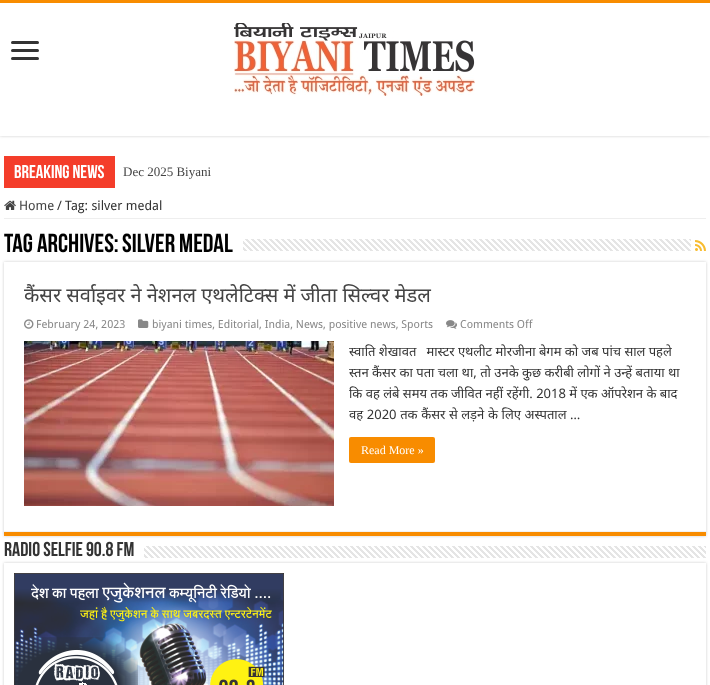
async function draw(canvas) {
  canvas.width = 710
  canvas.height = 685
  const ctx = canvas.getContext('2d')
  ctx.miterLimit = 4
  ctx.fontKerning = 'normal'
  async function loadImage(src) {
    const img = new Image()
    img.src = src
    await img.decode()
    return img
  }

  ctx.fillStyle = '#fff'
  ctx.fillRect(0, 0, 710, 685)
  ctx.save()
  ctx.beginPath()
  ctx.rect(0, 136, 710, 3)
  ctx.clip()
  ctx.fillStyle = '#cacaca'
  ctx.filter = 'blur(1.5px)'
  ctx.beginPath()
  ctx.rect(0, 0, 710, 136)
  ctx.fill()
  ctx.filter = 'none'
  ctx.restore()
  ctx.fillStyle = '#f88c00'
  ctx.fillRect(0, 0, 710, 3)
  ctx.fillStyle = '#333'
  ctx.beginPath()
  ctx.roundRect(11, 41, 28, 3, 1.5)
  ctx.fill()
  ctx.beginPath()
  ctx.roundRect(11, 49, 28, 3, 1.5)
  ctx.fill()
  ctx.beginPath()
  ctx.roundRect(11, 57, 28, 3, 1.5)
  ctx.fill()
  ctx.drawImage(await loadImage('image0.png'), 234, 23, 241, 73)
  ctx.fillStyle = '#f43d2a'
  ctx.fillRect(4, 156, 111, 32)
  ctx.font = 'bold 18.5px Bebas Neue'
  ctx.fillStyle = '#fff'
  ctx.fillText('Breaking News', 14, 178)
  ctx.font = '13px Liberation Serif'
  ctx.fillStyle = '#444'
  ctx.fillText('Dec 2025 Biyani', 123, 176)
  ctx.fillStyle = '#eee'
  ctx.fillRect(4, 218, 702, 1)
  ctx.drawImage(await loadImage('image1.png'), 4, 200, 12, 10)
  ctx.font = '13px Droid Sans'
  ctx.fillStyle = '#444'
  ctx.fillText('Home', 19, 210)
  ctx.fillStyle = '#333'
  ctx.fillText('/', 57, 210)
  ctx.fillText('Tag: silver medal', 65, 210)
  ctx.save()
  ctx.beginPath()
  ctx.rect(4, 229, 702, 33)
  ctx.clip()
  ctx.font = 'bold 26px Bebas Neue'
  ctx.fillStyle = '#000'
  ctx.fillText('Tag Archives:', 4, 252)
  ctx.restore()
  ctx.font = 'bold 26px Bebas Neue'
  ctx.fillStyle = '#000'
  ctx.fillText('silver medal', 122, 252)
  ctx.drawImage(await loadImage('image2.png'), 243, 239, 448, 12)
  ctx.drawImage(await loadImage('image3.png'), 695, 240, 11, 11)
  ctx.save()
  ctx.beginPath()
  ctx.moveTo(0, 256)
  ctx.lineTo(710, 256)
  ctx.lineTo(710, 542)
  ctx.lineTo(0, 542)
  ctx.closePath()
  ctx.moveTo(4, 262)
  ctx.lineTo(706, 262)
  ctx.lineTo(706, 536)
  ctx.lineTo(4, 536)
  ctx.closePath()
  ctx.clip('evenodd')
  ctx.fillStyle = '#cacaca'
  ctx.filter = 'blur(1.5px)'
  ctx.beginPath()
  ctx.rect(4, 262, 702, 274)
  ctx.fill()
  ctx.filter = 'none'
  ctx.restore()
  ctx.fillStyle = '#f88c00'
  ctx.fillRect(4, 532, 702, 4)
  ctx.fillStyle = '#f2f2f2'
  ctx.fillRect(4, 531, 702, 1)
  ctx.font = '20px Noto Sans'
  ctx.fillStyle = '#444'
  ctx.fillText('कैंसर सर्वाइवर ने नेशनल एथलेटिक्स में जीता सिल्वर मेडल', 24, 302)
  ctx.drawImage(await loadImage('image4.png'), 24, 319, 10, 10)
  ctx.font = '11.05px Droid Sans'
  ctx.fillStyle = '#888'
  ctx.fillText('February 24, 2023', 36, 328)
  ctx.drawImage(await loadImage('image5.png'), 138, 319, 11, 9)
  ctx.fillText('biyani times, Editorial, India, News, positive news, Sports', 152, 328)
  ctx.drawImage(await loadImage('image6.png'), 446, 320, 11, 9)
  ctx.fillText('Comments Off', 460, 328)
  ctx.drawImage(await loadImage('image7.png'), 24, 341, 310, 165)
  ctx.font = '13px Noto Sans'
  ctx.fillStyle = '#333'
  ctx.fillText('स्वाति शेखावत   मास्टर एथलीट मोरजीना बेगम को जब पांच साल पहले', 349, 356)
  ctx.fillText('स्तन कैंसर का पता चला था, तो उनके कुछ करीबी लोगों ने उन्हें बताया था', 349, 377)
  ctx.fillText('कि वह लंबे समय तक जीवित नहीं रहेंगी. 2018 में एक ऑपरेशन के बाद', 349, 398)
  ctx.wordSpacing = '0.25px'
  ctx.fillText('वह 2020 तक कैंसर से लड़ने के लिए अस्पताल …', 349, 419)
  ctx.fillStyle = '#f88c00'
  ctx.beginPath()
  ctx.roundRect(349, 437, 86, 26, 2)
  ctx.fill()
  ctx.wordSpacing = '0px'
  ctx.font = '12px Liberation Serif'
  ctx.fillStyle = '#fff'
  ctx.fillText('Read More »', 361, 454)
  ctx.font = 'bold 20px Bebas Neue'
  ctx.fillStyle = '#333'
  ctx.fillText('Radio Selfie 90.8 FM', 4, 556)
  ctx.save()
  ctx.beginPath()
  ctx.moveTo(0, 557)
  ctx.lineTo(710, 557)
  ctx.lineTo(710, 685)
  ctx.lineTo(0, 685)
  ctx.closePath()
  ctx.moveTo(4, 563)
  ctx.lineTo(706, 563)
  ctx.lineTo(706, 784)
  ctx.lineTo(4, 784)
  ctx.closePath()
  ctx.clip('evenodd')
  ctx.fillStyle = '#cacaca'
  ctx.filter = 'blur(1.5px)'
  ctx.beginPath()
  ctx.rect(4, 563, 702, 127)
  ctx.fill()
  ctx.filter = 'none'
  ctx.restore()
  ctx.drawImage(await loadImage('image8.png'), 144, 546, 562, 12)
  ctx.drawImage(await loadImage('image9.png'), 14, 573, 270, 112)
}

draw(document.querySelector('canvas'))
